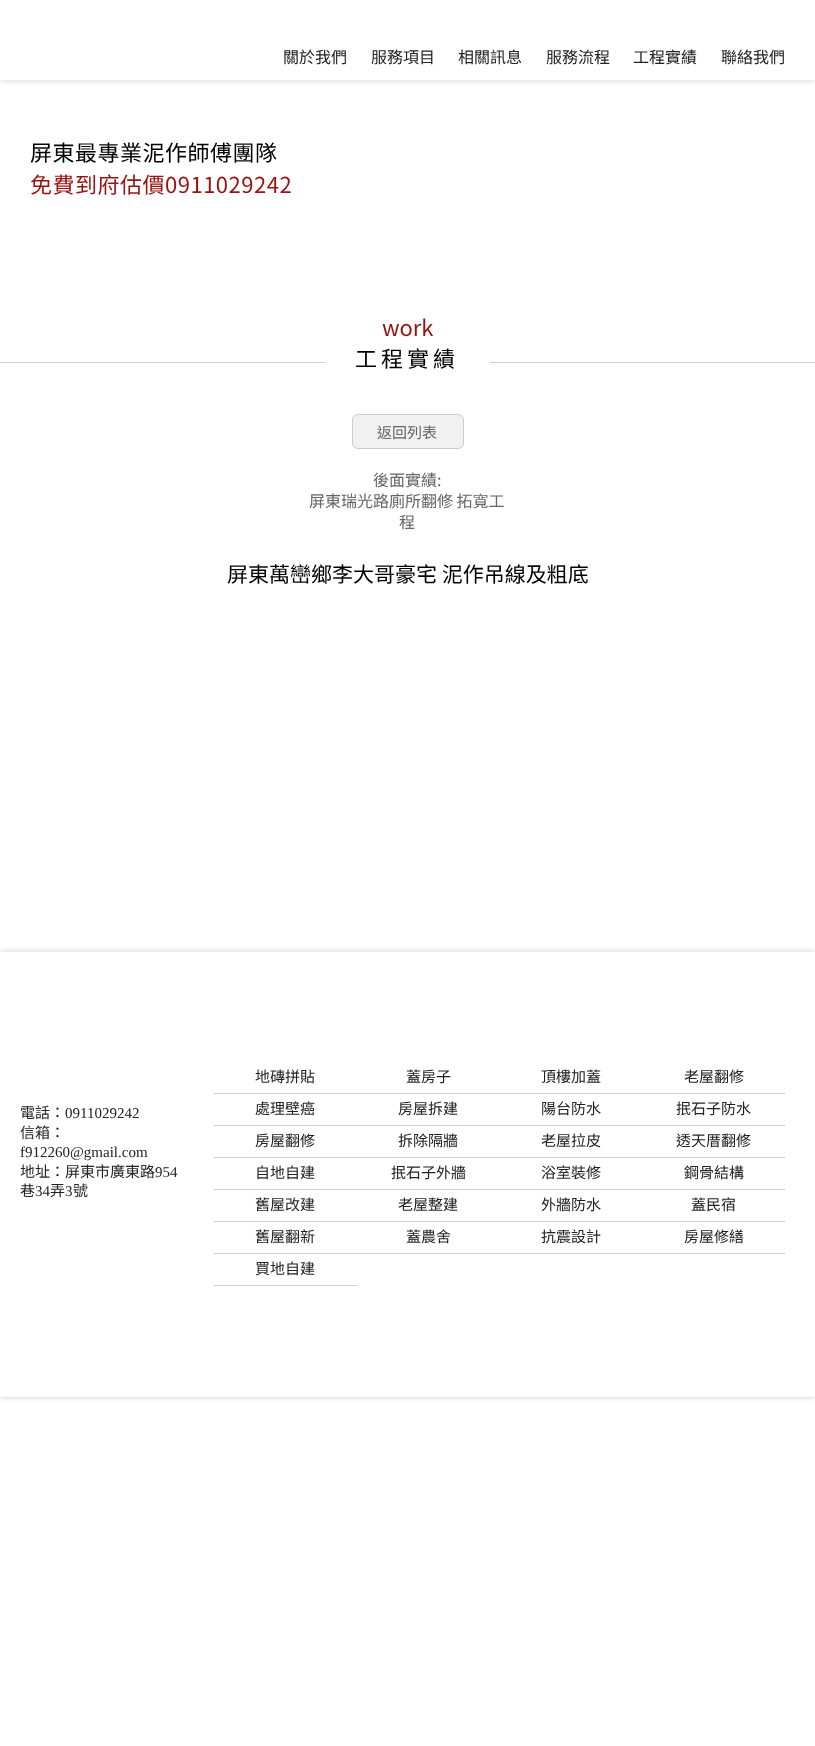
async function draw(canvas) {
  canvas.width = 815
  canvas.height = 1746
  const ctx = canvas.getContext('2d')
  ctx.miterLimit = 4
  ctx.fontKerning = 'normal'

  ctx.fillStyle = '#fff'
  ctx.fillRect(0, 0, 815, 1746)
  ctx.save()
  ctx.beginPath()
  ctx.rect(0, 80, 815, 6)
  ctx.clip()
  ctx.fillStyle = '#ccc'
  ctx.filter = 'blur(3px)'
  ctx.beginPath()
  ctx.rect(0, 0, 815, 80)
  ctx.fill()
  ctx.filter = 'none'
  ctx.restore()
  ctx.font = '16px Noto Sans TC'
  ctx.fillStyle = '#222'
  ctx.fillText('關於我們', 283, 63)
  ctx.fillText('服務項目', 371, 63)
  ctx.fillText('相關訊息', 458, 63)
  ctx.fillText('服務流程', 546, 63)
  ctx.fillText('工程實績', 633, 63)
  ctx.fillText('聯絡我們', 721, 63)
  ctx.letterSpacing = '0.5px'
  ctx.font = '22px Noto Sans TC'
  ctx.fillStyle = '#000'
  ctx.fillText('屏東最專業泥作師傅團隊', 30, 161)
  ctx.fillStyle = '#981212'
  ctx.fillText('免費到府估價0911029242', 30, 193)
  ctx.fillStyle = '#ccc'
  ctx.fillRect(0, 362, 815, 1)
  ctx.fillStyle = '#fff'
  ctx.fillRect(325, 362, 165, 1)
  ctx.letterSpacing = '0px'
  ctx.fillStyle = '#981212'
  ctx.fillText('work', 382, 336)
  ctx.letterSpacing = '4px'
  ctx.fillStyle = '#000'
  ctx.fillText('工程實績', 355, 367)
  ctx.fillStyle = '#f1f1f1'
  ctx.beginPath()
  ctx.roundRect(352.5, 414.5, 111, 34, 5.5)
  ctx.fill()
  ctx.strokeStyle = '#ccc'
  ctx.stroke()
  ctx.letterSpacing = '0px'
  ctx.font = '15px Noto Sans TC'
  ctx.fillStyle = '#666'
  ctx.fillText('返回列表', 377, 438)
  ctx.font = '16px Noto Sans TC'
  ctx.fillText('後面實績:', 373, 486)
  ctx.font = '16px Noto Sans CJK TC'
  ctx.fillText('屏東瑞光路廁所翻修 拓寬工', 309, 507)
  ctx.fillText('程', 399, 528)
  ctx.font = '21px Noto Sans TC'
  ctx.fillStyle = '#000'
  ctx.fillText('屏東萬巒鄉李大哥豪宅 泥作吊線及粗底', 227, 582)
  ctx.save()
  ctx.beginPath()
  ctx.moveTo(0, 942)
  ctx.lineTo(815, 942)
  ctx.lineTo(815, 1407)
  ctx.lineTo(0, 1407)
  ctx.closePath()
  ctx.moveTo(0, 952)
  ctx.lineTo(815, 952)
  ctx.lineTo(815, 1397)
  ctx.lineTo(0, 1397)
  ctx.closePath()
  ctx.clip('evenodd')
  ctx.fillStyle = '#ccc'
  ctx.filter = 'blur(3px)'
  ctx.beginPath()
  ctx.rect(0, 952, 815, 445)
  ctx.fill()
  ctx.filter = 'none'
  ctx.restore()
  ctx.font = '15px Noto Sans CJK TC'
  ctx.fillStyle = '#222'
  ctx.fillText('電話：', 20, 1118)
  ctx.font = '15px Liberation Serif'
  ctx.fillText('0911029242', 65, 1118)
  ctx.font = '15px Noto Sans CJK TC'
  ctx.fillText('信箱：', 20, 1138)
  ctx.font = '15px Liberation Serif'
  ctx.fillText('f912260@gmail.com', 20, 1157)
  ctx.font = '15px Noto Sans CJK TC'
  ctx.fillText('地址：屏東市廣東路', 20, 1177)
  ctx.font = '15px Liberation Serif'
  ctx.fillText('954', 155, 1177)
  ctx.font = '15px Noto Sans CJK TC'
  ctx.fillText('巷', 20, 1196)
  ctx.font = '15px Liberation Serif'
  ctx.fillText('34', 35, 1196)
  ctx.font = '15px Noto Sans CJK TC'
  ctx.fillText('弄', 50, 1196)
  ctx.font = '15px Liberation Serif'
  ctx.fillText('3', 65, 1196)
  ctx.font = '15px Noto Sans CJK TC'
  ctx.fillText('號', 73, 1196)
  ctx.fillStyle = '#ccc'
  ctx.fillRect(214, 1093, 571, 1)
  ctx.fillStyle = '#222'
  ctx.fillText('地磚拼貼', 255, 1082)
  ctx.fillText('蓋房子', 406, 1082)
  ctx.fillText('頂樓加蓋', 541, 1082)
  ctx.fillText('老屋翻修', 684, 1082)
  ctx.fillStyle = '#ccc'
  ctx.fillRect(214, 1125, 571, 1)
  ctx.fillStyle = '#222'
  ctx.fillText('處理壁癌', 255, 1114)
  ctx.fillText('房屋拆建', 398, 1114)
  ctx.fillText('陽台防水', 541, 1114)
  ctx.fillText('抿石子防水', 676, 1114)
  ctx.fillStyle = '#ccc'
  ctx.fillRect(214, 1157, 571, 1)
  ctx.fillStyle = '#222'
  ctx.fillText('房屋翻修', 255, 1146)
  ctx.fillText('拆除隔牆', 398, 1146)
  ctx.fillText('老屋拉皮', 541, 1146)
  ctx.fillText('透天厝翻修', 676, 1146)
  ctx.fillStyle = '#ccc'
  ctx.fillRect(214, 1189, 571, 1)
  ctx.fillStyle = '#222'
  ctx.fillText('自地自建', 255, 1178)
  ctx.fillText('抿石子外牆', 391, 1178)
  ctx.fillText('浴室裝修', 541, 1178)
  ctx.fillText('鋼骨結構', 684, 1178)
  ctx.fillStyle = '#ccc'
  ctx.fillRect(214, 1221, 571, 1)
  ctx.fillStyle = '#222'
  ctx.fillText('舊屋改建', 255, 1210)
  ctx.fillText('老屋整建', 398, 1210)
  ctx.fillText('外牆防水', 541, 1210)
  ctx.fillText('蓋民宿', 691, 1210)
  ctx.fillStyle = '#ccc'
  ctx.fillRect(214, 1253, 571, 1)
  ctx.fillStyle = '#222'
  ctx.fillText('舊屋翻新', 255, 1242)
  ctx.fillText('蓋農舍', 406, 1242)
  ctx.fillText('抗震設計', 541, 1242)
  ctx.fillText('房屋修繕', 684, 1242)
  ctx.fillStyle = '#ccc'
  ctx.fillRect(214, 1285, 143, 1)
  ctx.fillStyle = '#222'
  ctx.fillText('買地自建', 255, 1274)
}

draw(document.querySelector('canvas'))
